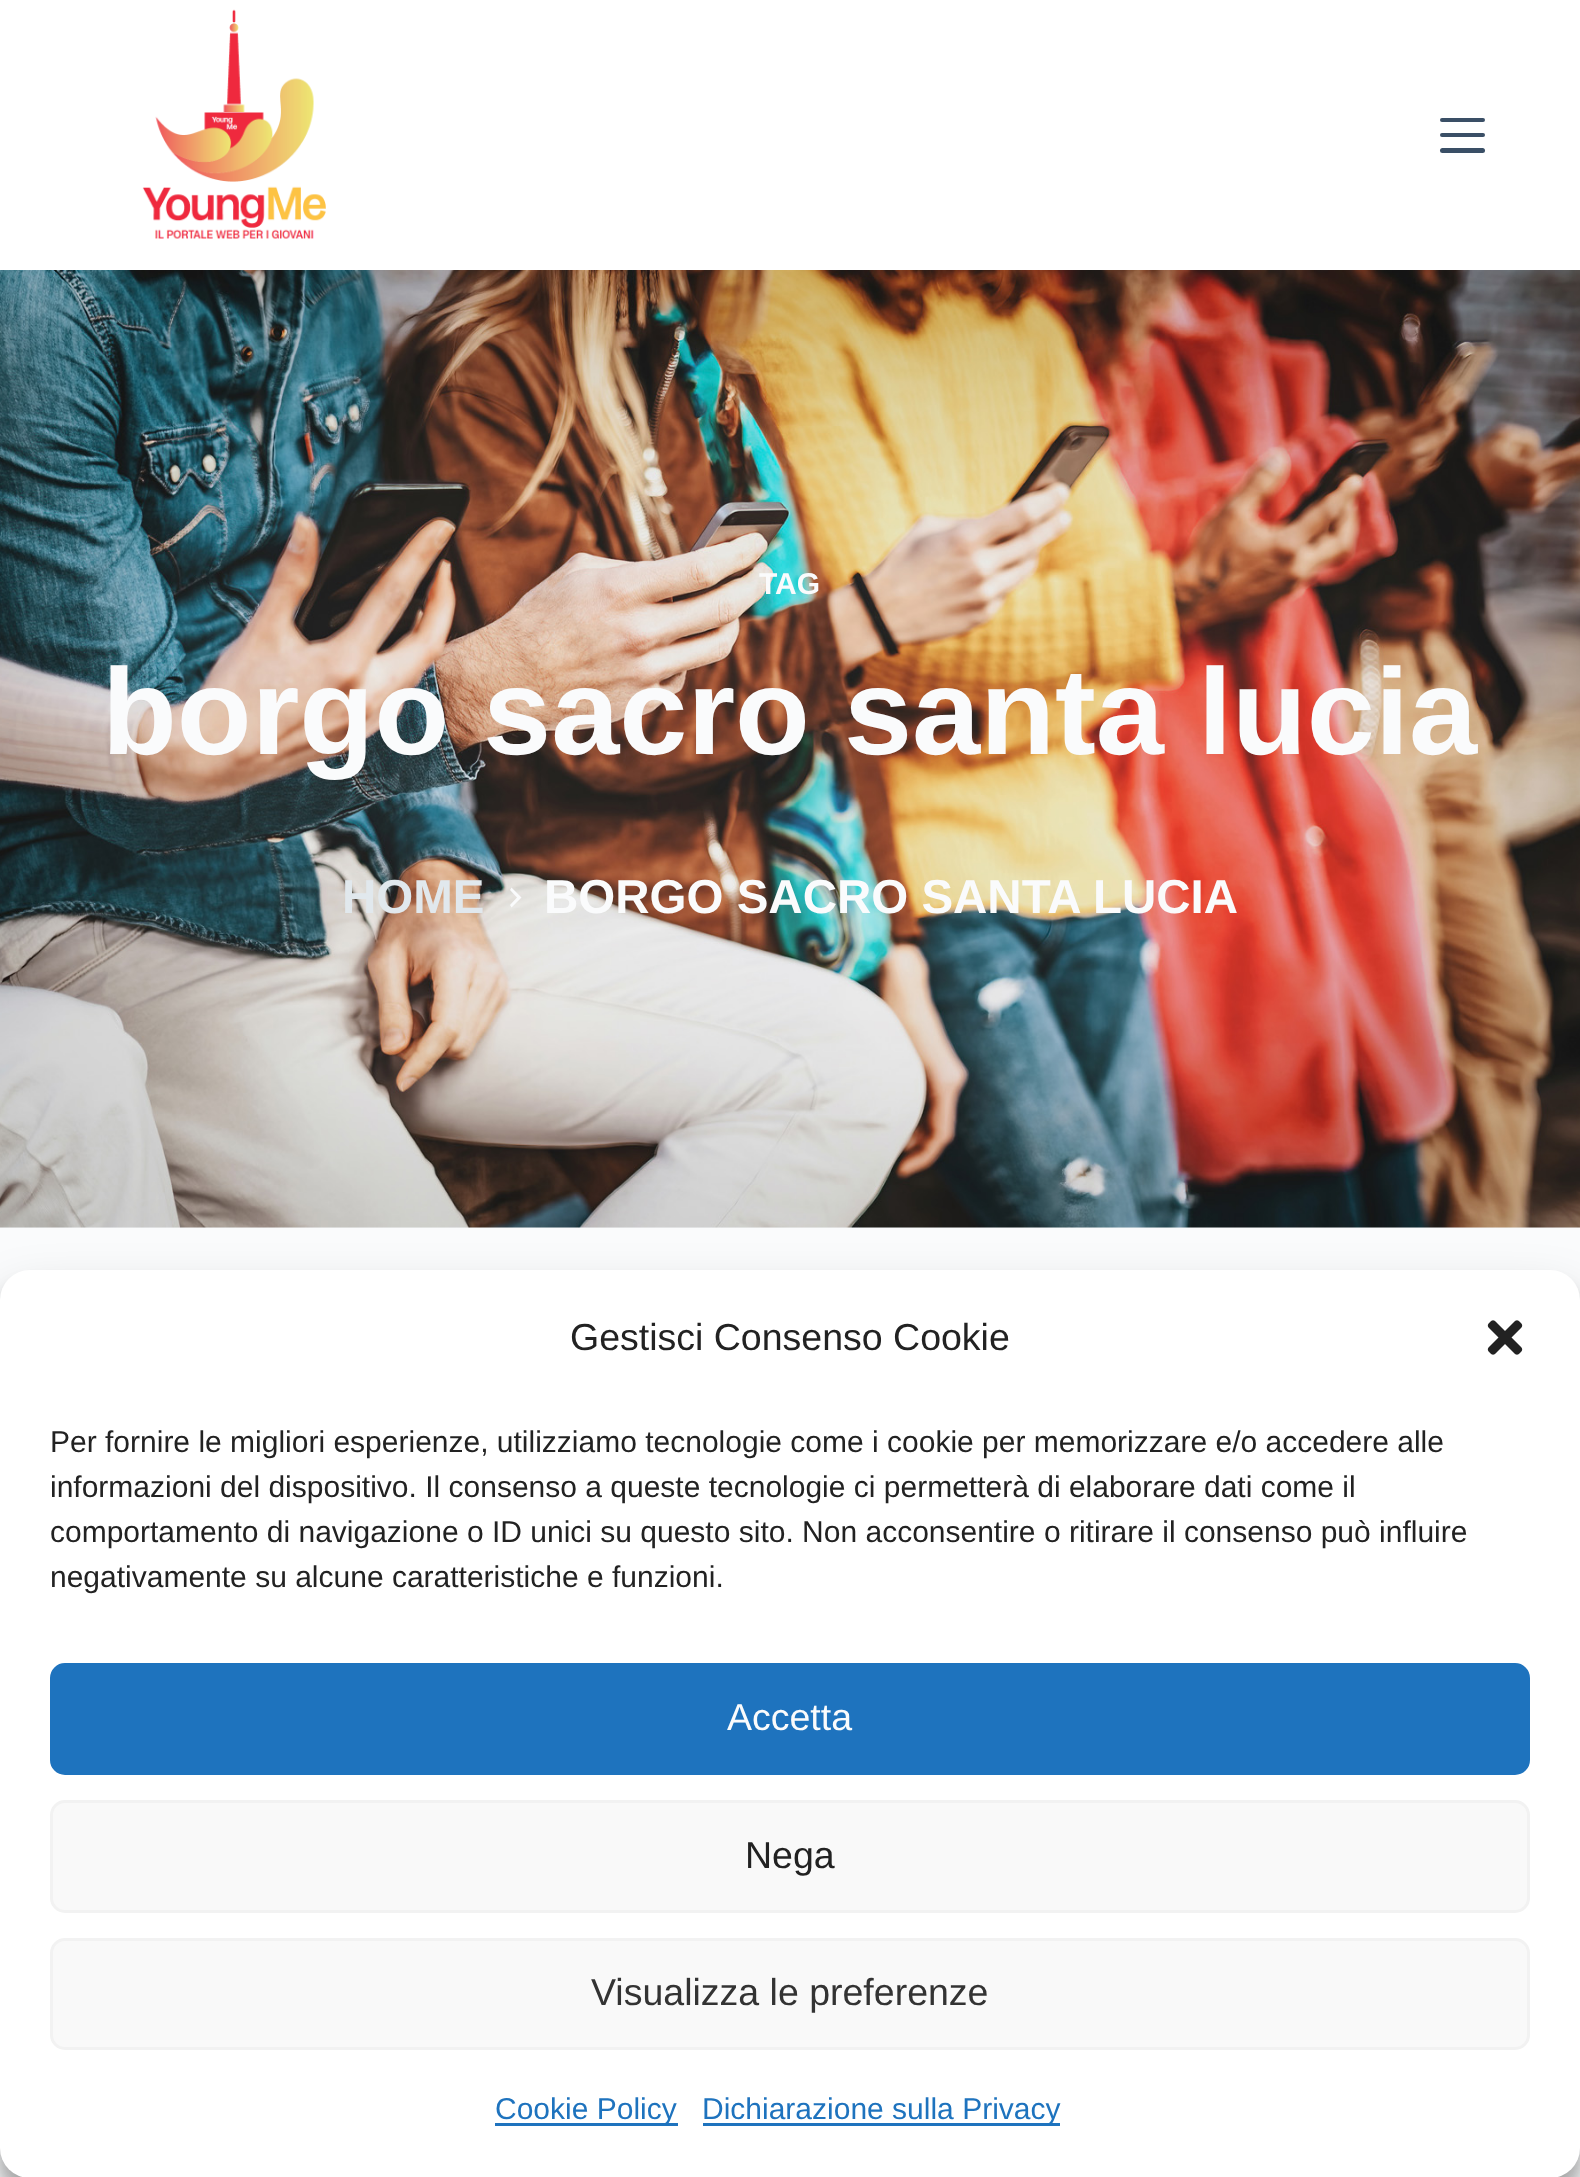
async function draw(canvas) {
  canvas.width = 1580
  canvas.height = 2177
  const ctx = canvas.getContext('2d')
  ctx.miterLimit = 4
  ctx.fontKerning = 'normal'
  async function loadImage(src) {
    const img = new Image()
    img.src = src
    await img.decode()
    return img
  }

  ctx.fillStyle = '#fafbfc'
  ctx.fillRect(0, 0, 1580, 2177)
  ctx.fillStyle = '#fff'
  ctx.fillRect(0, 0, 1580, 270)
  ctx.drawImage(await loadImage('image0.png'), 142, 9, 184, 230)
  ctx.fillStyle = '#3a4f66'
  ctx.beginPath()
  ctx.roundRect(1440, 118, 45, 4, 2)
  ctx.fill()
  ctx.beginPath()
  ctx.roundRect(1440, 133, 45, 4, 2)
  ctx.fill()
  ctx.beginPath()
  ctx.roundRect(1440, 148, 45, 5, 2.5)
  ctx.fill()
  ctx.fillStyle = '#f2f5f7'
  ctx.fillRect(0, 1227, 1580, 1)
  ctx.drawImage(await loadImage('image1.png'), 0, 270, 1580, 958)
  ctx.font = 'bold 30px Liberation Sans'
  ctx.fillStyle = '#fafbfc'
  ctx.fillText('TAG', 759, 594)
  ctx.font = 'bold 122.5px Liberation Sans'
  ctx.fillText('borgo sacro santa lucia', 102, 754)
  ctx.font = 'bold 47.5px Liberation Sans'
  ctx.fillStyle = '#e1e8ed'
  ctx.fillText('HOME', 342, 913)
  ctx.fillStyle = '#fafbfc'
  ctx.beginPath()
  ctx.moveTo(510, 905)
  ctx.lineTo(517, 897.5)
  ctx.lineTo(510, 890)
  ctx.lineTo(511.5, 887.5)
  ctx.lineTo(521.5, 897.5)
  ctx.lineTo(511.5, 907.5)
  ctx.closePath()
  ctx.fill()
  ctx.fillText('BORGO SACRO SANTA LUCIA', 544, 913)
  ctx.fillStyle = '#0000003b'
  ctx.filter = 'blur(7.5px)'
  ctx.beginPath()
  ctx.roundRect(0, 1285, 1580, 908, 30)
  ctx.fill()
  ctx.filter = 'none'
  ctx.fillStyle = '#00000030'
  ctx.filter = 'blur(25px)'
  ctx.beginPath()
  ctx.roundRect(0, 1295, 1580, 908, 30)
  ctx.fill()
  ctx.filter = 'none'
  ctx.fillStyle = '#fff'
  ctx.beginPath()
  ctx.roundRect(0, 1270, 1580, 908, 30)
  ctx.fill()
  ctx.font = '37.5px Liberation Sans'
  ctx.fillStyle = '#222'
  ctx.fillText('Gestisci Consenso Cookie', 570, 1350)
  ctx.drawImage(await loadImage('image2.png'), 1487, 1320, 36, 35)
  ctx.font = '30px Liberation Sans'
  ctx.fillText('Per fornire le migliori esperienze, utilizziamo tecnologie come i cookie per memorizzare e/o accedere alle', 50, 1452)
  ctx.fillText('informazioni del dispositivo. Il consenso a queste tecnologie ci permetterà di elaborare dati come il', 50, 1497)
  ctx.fillText('comportamento di navigazione o ID unici su questo sito. Non acconsentire o ritirare il consenso può influire', 50, 1542)
  ctx.fillText('negativamente su alcune caratteristiche e funzioni.', 50, 1587)
  ctx.fillStyle = '#1e73be'
  ctx.beginPath()
  ctx.roundRect(51.5, 1664.5, 1477, 109, 13.5)
  ctx.fill()
  ctx.strokeStyle = '#1e73be'
  ctx.lineWidth = 3
  ctx.stroke()
  ctx.font = '37.5px Liberation Sans'
  ctx.fillStyle = '#fafbfc'
  ctx.fillText('Accetta', 727, 1730)
  ctx.fillStyle = '#f9f9f9'
  ctx.beginPath()
  ctx.roundRect(51.5, 1801.5, 1477, 110, 13.5)
  ctx.fill()
  ctx.strokeStyle = '#f2f2f2'
  ctx.stroke()
  ctx.fillStyle = '#222'
  ctx.fillText('Nega', 745, 1868)
  ctx.fillStyle = '#f9f9f9'
  ctx.beginPath()
  ctx.roundRect(51.5, 1939.5, 1477, 109, 13.5)
  ctx.fill()
  ctx.stroke()
  ctx.fillStyle = '#333'
  ctx.fillText('Visualizza le preferenze', 591, 2005)
  ctx.fillStyle = '#1e73be'
  ctx.fillRect(495, 2123, 183, 3)
  ctx.font = '30px Liberation Sans'
  ctx.fillText('Cookie Policy', 495, 2119)
  ctx.fillRect(703, 2123, 357, 3)
  ctx.fillText('Dichiarazione sulla Privacy', 702, 2119)
}

draw(document.querySelector('canvas'))
